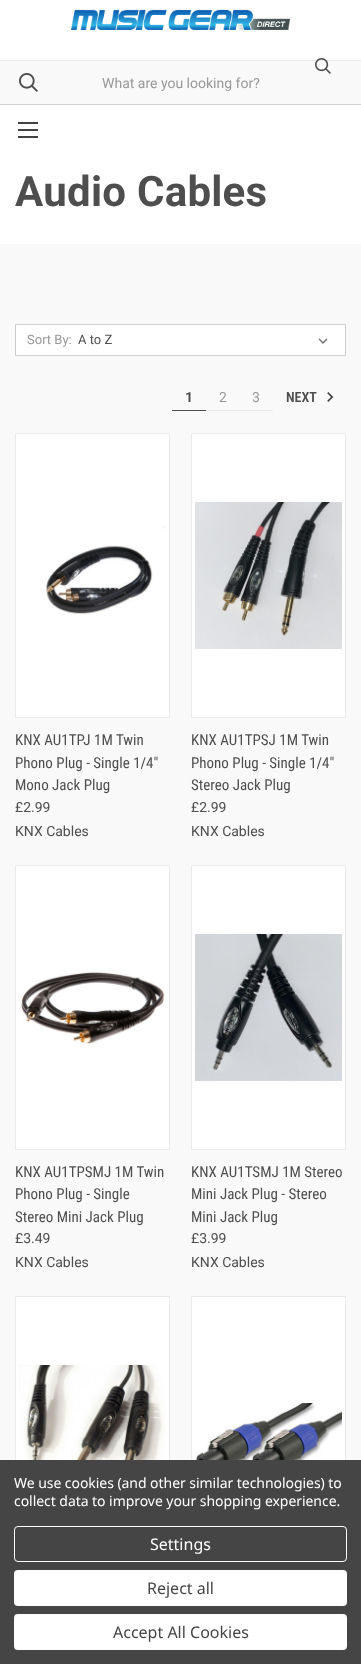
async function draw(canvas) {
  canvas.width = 361
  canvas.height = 1664
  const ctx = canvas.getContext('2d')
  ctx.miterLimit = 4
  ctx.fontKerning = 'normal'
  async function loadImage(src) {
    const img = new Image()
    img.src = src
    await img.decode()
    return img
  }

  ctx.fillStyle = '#fff'
  ctx.fillRect(0, 0, 361, 1664)
  ctx.drawImage(await loadImage('image0.png'), 71, 9, 219, 21)
  ctx.fillStyle = '#f9f9f9'
  ctx.fillRect(0, 61, 361, 43)
  ctx.fillStyle = '#ebebeb'
  ctx.fillRect(0, 60, 361, 1)
  ctx.drawImage(await loadImage('image1.png'), 315, 58, 16, 16)
  ctx.drawImage(await loadImage('image2.png'), 19, 73, 19, 19)
  ctx.font = '14px Roboto'
  ctx.fillStyle = '#989898'
  ctx.fillText('What are you looking for?', 102, 88)
  ctx.fillStyle = '#d2d2d2'
  ctx.fillRect(0, 104, 361, 1)
  ctx.fillStyle = '#424242'
  ctx.fillRect(18, 129, 20, 2)
  ctx.fillRect(18, 122, 20, 2)
  ctx.fillRect(18, 136, 20, 2)
  ctx.letterSpacing = '0.25px'
  ctx.font = 'bold 42px Roboto'
  ctx.fillStyle = '#4e4e4e'
  ctx.fillText('Audio Cables', 15, 206)
  ctx.fillStyle = '#f9f9f9'
  ctx.fillRect(0, 244, 361, 1216)
  ctx.fillStyle = '#fff'
  ctx.beginPath()
  ctx.rect(15.5, 324.5, 330, 31)
  ctx.fill()
  ctx.strokeStyle = '#ccc'
  ctx.stroke()
  ctx.letterSpacing = '0px'
  ctx.font = '13px Roboto'
  ctx.fillStyle = '#989898'
  ctx.fillText('Sort By:', 27, 344)
  ctx.drawImage(await loadImage('image3.png'), 318, 338, 10, 6)
  ctx.fillStyle = '#4e4e4e'
  ctx.fillText('A to Z', 78, 344)
  ctx.fillRect(172, 410, 34, 1)
  ctx.font = 'bold 14px Roboto'
  ctx.fillText('1', 185, 402)
  ctx.fillStyle = '#ebebeb'
  ctx.fillRect(206, 410, 67, 1)
  ctx.font = '14px Roboto'
  ctx.fillStyle = '#989898'
  ctx.fillText('2', 219, 402)
  ctx.fillText('3', 252, 402)
  ctx.font = '600 14px Roboto Condensed'
  ctx.fillStyle = '#4e4e4e'
  ctx.fillText('NEXT', 286, 402)
  ctx.drawImage(await loadImage('image4.png'), 327, 392, 7, 10)
  ctx.fillStyle = '#fff'
  ctx.beginPath()
  ctx.rect(15.5, 433.5, 154, 284)
  ctx.fill()
  ctx.strokeStyle = '#ebebeb'
  ctx.stroke()
  ctx.drawImage(await loadImage('image5.png'), 46, 526, 120, 89)
  ctx.font = '15px Roboto Condensed'
  ctx.fillStyle = '#4e4e4e'
  ctx.fillText('KNX AU1TPJ 1M Twin', 15, 745)
  ctx.fillText('Phono Plug - Single 1/4"', 15, 768)
  ctx.fillText('Mono Jack Plug', 15, 790)
  ctx.font = '14px Roboto'
  ctx.fillText('£2.99', 15, 812)
  ctx.fillText('KNX Cables', 15, 836)
  ctx.fillStyle = '#fff'
  ctx.beginPath()
  ctx.rect(191.5, 433.5, 154, 284)
  ctx.fill()
  ctx.stroke()
  ctx.drawImage(await loadImage('image6.png'), 195, 502, 147, 147)
  ctx.font = '15px Roboto Condensed'
  ctx.fillStyle = '#4e4e4e'
  ctx.fillText('KNX AU1TPSJ 1M Twin', 191, 745)
  ctx.fillText('Phono Plug - Single 1/4"', 191, 768)
  ctx.fillText('Stereo Jack Plug', 191, 790)
  ctx.font = '14px Roboto'
  ctx.fillText('£2.99', 191, 812)
  ctx.fillText('KNX Cables', 191, 836)
  ctx.fillStyle = '#fff'
  ctx.beginPath()
  ctx.rect(15.5, 865.5, 154, 284)
  ctx.fill()
  ctx.stroke()
  ctx.drawImage(await loadImage('image7.png'), 21, 972, 144, 72)
  ctx.font = '15px Roboto Condensed'
  ctx.fillStyle = '#4e4e4e'
  ctx.fillText('KNX AU1TPSMJ 1M Twin', 15, 1177)
  ctx.fillText('Phono Plug - Single', 15, 1199)
  ctx.fillText('Stereo Mini Jack Plug', 15, 1222)
  ctx.font = '14px Roboto'
  ctx.fillText('£3.49', 15, 1243)
  ctx.fillText('KNX Cables', 15, 1267)
  ctx.fillStyle = '#fff'
  ctx.beginPath()
  ctx.rect(191.5, 865.5, 154, 284)
  ctx.fill()
  ctx.stroke()
  ctx.drawImage(await loadImage('image8.png'), 195, 934, 147, 147)
  ctx.font = '15px Roboto Condensed'
  ctx.fillStyle = '#4e4e4e'
  ctx.fillText('KNX AU1TSMJ 1M Stereo', 191, 1177)
  ctx.fillText('Mini Jack Plug - Stereo', 191, 1199)
  ctx.fillText('Mini Jack Plug', 191, 1222)
  ctx.font = '14px Roboto'
  ctx.fillText('£3.99', 191, 1243)
  ctx.fillText('KNX Cables', 191, 1267)
  ctx.fillStyle = '#fff'
  ctx.fillRect(16, 1297, 153, 163)
  ctx.strokeRect(15.5, 1296.5, 154, 284)
  ctx.drawImage(await loadImage('image9.png'), 19, 1365, 147, 95)
  ctx.fillRect(192, 1297, 153, 163)
  ctx.strokeRect(191.5, 1296.5, 154, 284)
  ctx.drawImage(await loadImage('image10.png'), 195, 1403, 147, 57)
  ctx.fillStyle = '#454545'
  ctx.fillRect(0, 1460, 361, 204)
  ctx.letterSpacing = '-0.05px'
  ctx.font = '14px Noto Sans'
  ctx.fillStyle = '#fff'
  ctx.fillText('We use cookies (and other similar technologies) to', 14, 1488)
  ctx.fillText('collect data to improve your shopping experience.', 14, 1506)
  ctx.beginPath()
  ctx.roundRect(14.5, 1526.5, 332, 35, 3.5)
  ctx.strokeStyle = '#fff'
  ctx.stroke()
  ctx.letterSpacing = '0px'
  ctx.font = '16px Noto Sans'
  ctx.fillText('Settings', 150, 1550)
  ctx.beginPath()
  ctx.roundRect(14, 1570, 333, 36, 4)
  ctx.fill()
  ctx.fillStyle = '#454545'
  ctx.fillText('Reject all', 147, 1594)
  ctx.fillStyle = '#fff'
  ctx.beginPath()
  ctx.roundRect(14, 1614, 333, 36, 4)
  ctx.fill()
  ctx.fillStyle = '#454545'
  ctx.fillText('Accept All Cookies', 113, 1638)
}

draw(document.querySelector('canvas'))
